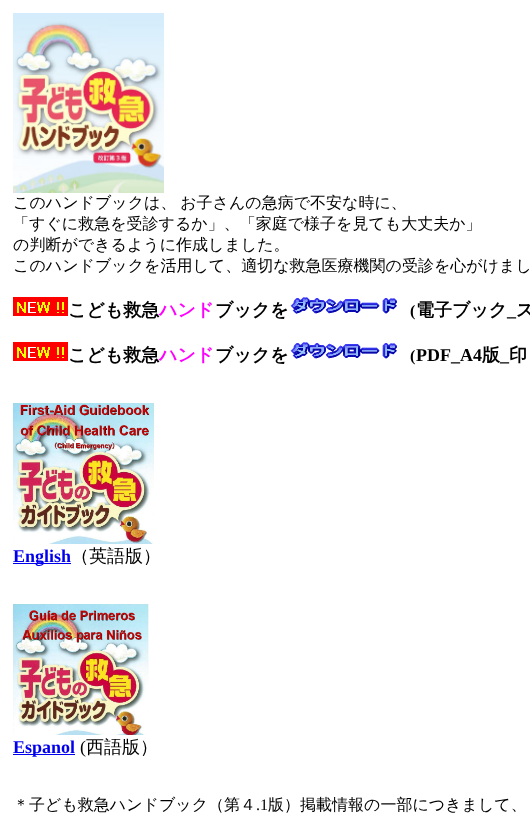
async function draw(canvas) {
  canvas.width = 530
  canvas.height = 823
  const ctx = canvas.getContext('2d')
  ctx.miterLimit = 4
  ctx.fontKerning = 'normal'
  async function loadImage(src) {
    const img = new Image()
    img.src = src
    await img.decode()
    return img
  }

  ctx.fillStyle = '#fff'
  ctx.fillRect(0, 0, 530, 823)
  ctx.drawImage(await loadImage('image0.png'), 13, 13, 151, 180)
  ctx.wordSpacing = '-1px'
  ctx.font = '500 16px WenQuanYi Zen Hei'
  ctx.fillStyle = '#000'
  ctx.fillText('このハンドブックは、 お子さんの急病で不安な時に、', 13, 208)
  ctx.wordSpacing = '0px'
  ctx.fillText('「すぐに救急を受診するか」、「家庭で様子を見ても大丈夫か」', 13, 229)
  ctx.fillText('の判断ができるように作成しました。', 13, 250)
  ctx.fillText('このハンドブックを活用して、適切な救急医療機関の受診を心がけまし', 13, 271)
  ctx.drawImage(await loadImage('image1.png'), 13, 297, 55, 19)
  ctx.font = 'bold 18px WenQuanYi Zen Hei'
  ctx.fillText('こども救急', 68, 316)
  ctx.fillStyle = '#f0f'
  ctx.fillText('ハンド', 159, 316)
  ctx.fillStyle = '#000'
  ctx.fillText('ブックを', 215, 316)
  ctx.drawImage(await loadImage('image2.png'), 290, 297, 107, 17)
  ctx.font = 'bold 16px Liberation Serif'
  ctx.fillText('(', 410, 316)
  ctx.font = 'bold 18px WenQuanYi Zen Hei'
  ctx.fillText('電子ブック', 416, 316)
  ctx.fillText('ス', 516, 316)
  ctx.font = 'bold 18px Liberation Serif'
  ctx.fillText('_', 507, 316)
  ctx.drawImage(await loadImage('image1.png'), 13, 342, 55, 19)
  ctx.font = 'bold 18px WenQuanYi Zen Hei'
  ctx.fillText('こども救急', 68, 361)
  ctx.fillStyle = '#f0f'
  ctx.fillText('ハンド', 159, 361)
  ctx.fillStyle = '#000'
  ctx.fillText('ブックを', 215, 361)
  ctx.drawImage(await loadImage('image2.png'), 290, 342, 107, 17)
  ctx.font = 'bold 16px Liberation Serif'
  ctx.fillText('(', 410, 361)
  ctx.font = 'bold 18px Liberation Serif'
  ctx.fillText('PDF_A4', 416, 361)
  ctx.font = 'bold 18px WenQuanYi Zen Hei'
  ctx.fillText('版', 482, 361)
  ctx.font = 'bold 18px Liberation Serif'
  ctx.fillText('_', 500, 361)
  ctx.font = 'bold 18px WenQuanYi Zen Hei'
  ctx.fillText('印', 509, 361)
  ctx.drawImage(await loadImage('image3.png'), 13, 403, 141, 141)
  ctx.fillStyle = '#00e'
  ctx.fillRect(13, 563, 58, 1)
  ctx.font = 'bold 18px Liberation Serif'
  ctx.fillText('English', 13, 562)
  ctx.font = '500 18px WenQuanYi Zen Hei'
  ctx.fillStyle = '#000'
  ctx.fillText('（英語版）', 71, 562)
  ctx.drawImage(await loadImage('image4.png'), 13, 604, 136, 131)
  ctx.fillStyle = '#00e'
  ctx.fillRect(13, 754, 62, 1)
  ctx.font = 'bold 18px Liberation Serif'
  ctx.fillText('Espanol', 13, 753)
  ctx.font = '18px Liberation Serif'
  ctx.fillStyle = '#000'
  ctx.fillText('(', 80, 753)
  ctx.font = '500 18px WenQuanYi Zen Hei'
  ctx.fillText('西語版）', 86, 753)
  ctx.font = '500 16px WenQuanYi Zen Hei'
  ctx.fillText('＊子ども救急ハンドブック（第４', 13, 810)
  ctx.font = '16px Liberation Serif'
  ctx.fillText('.1', 256, 810)
  ctx.font = '500 16px WenQuanYi Zen Hei'
  ctx.fillText('版）掲載情報の一部につきまして、', 268, 810)
}

draw(document.querySelector('canvas'))
